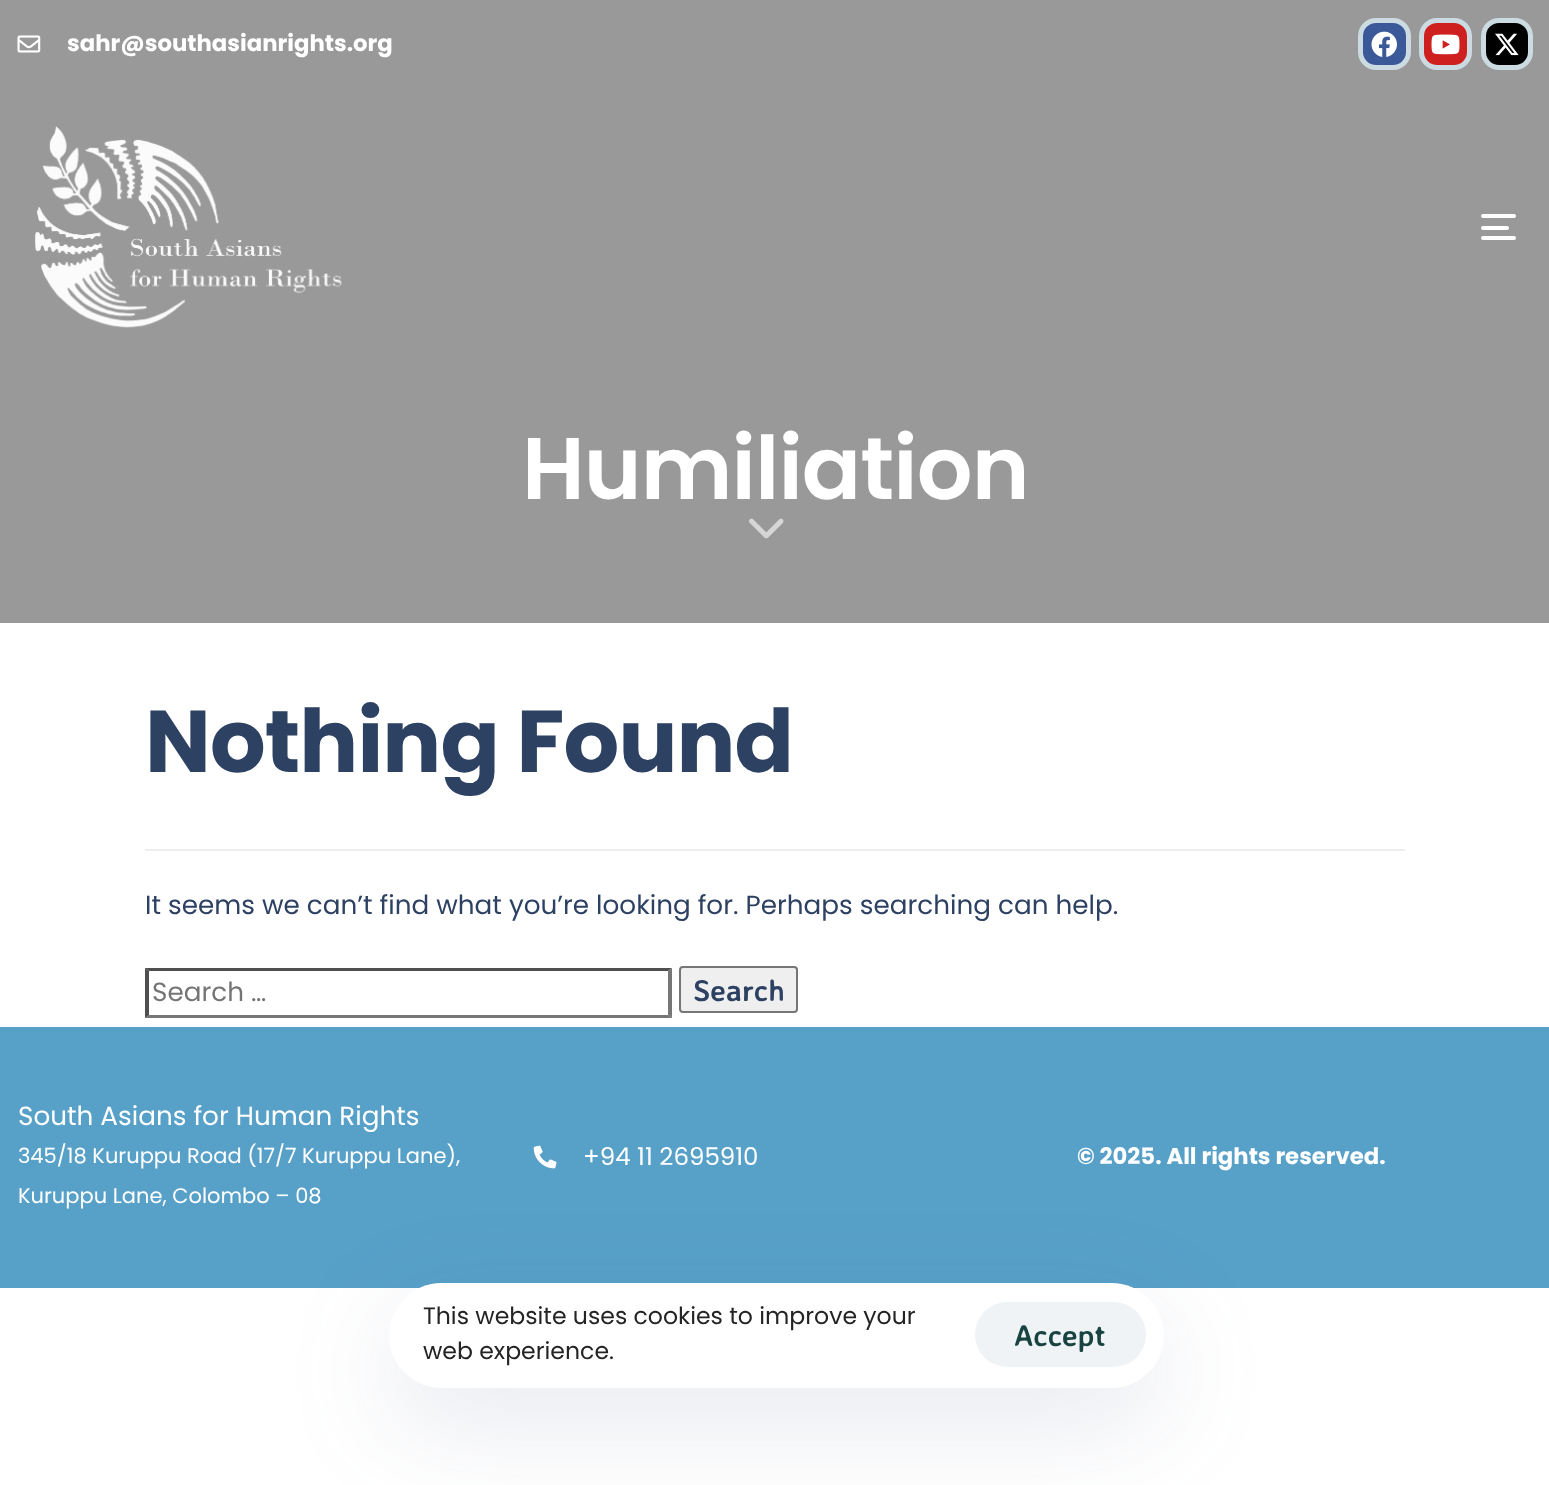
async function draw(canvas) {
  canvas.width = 1549
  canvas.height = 1485
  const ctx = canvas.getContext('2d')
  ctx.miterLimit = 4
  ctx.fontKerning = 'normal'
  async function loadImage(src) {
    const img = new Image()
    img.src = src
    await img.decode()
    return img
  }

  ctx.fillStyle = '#fff'
  ctx.fillRect(0, 0, 1549, 1485)
  ctx.fillStyle = '#999'
  ctx.fillRect(0, 0, 1549, 623)
  ctx.drawImage(await loadImage('image0.png'), 17, 35, 24, 18)
  ctx.font = 'bold 22.75px Poppins'
  ctx.fillStyle = '#fff'
  ctx.fillText('sahr@southasianrights.org', 67, 51)
  ctx.fillStyle = '#3b5998'
  ctx.beginPath()
  ctx.roundRect(1360.5, 20.5, 48, 47, 15.5)
  ctx.fill()
  ctx.strokeStyle = '#cbdbe1'
  ctx.lineWidth = 5
  ctx.stroke()
  ctx.drawImage(await loadImage('image1.png'), 1371, 31, 26, 26)
  ctx.fillStyle = '#cd201f'
  ctx.beginPath()
  ctx.roundRect(1421.5, 20.5, 48, 47, 15.5)
  ctx.fill()
  ctx.stroke()
  ctx.drawImage(await loadImage('image2.png'), 1431, 34, 29, 21)
  ctx.fillStyle = '#000'
  ctx.beginPath()
  ctx.roundRect(1483.5, 20.5, 47, 47, 15.5)
  ctx.fill()
  ctx.stroke()
  ctx.drawImage(await loadImage('image3.png'), 1495, 33, 24, 23)
  ctx.drawImage(await loadImage('image4.png'), 35, 126, 307, 202)
  ctx.fillStyle = '#fff'
  ctx.beginPath()
  ctx.roundRect(1481, 214, 35, 4, 2)
  ctx.fill()
  ctx.beginPath()
  ctx.roundRect(1481, 226, 28, 4, 2)
  ctx.fill()
  ctx.beginPath()
  ctx.roundRect(1481, 236, 35, 4, 2)
  ctx.fill()
  ctx.letterSpacing = '-0.9px'
  ctx.font = '600 87.5px Poppins'
  ctx.fillText('Humiliation', 522, 499)
  ctx.drawImage(await loadImage('image5.png'), 749, 518, 35, 21)
  ctx.fillStyle = '#eee'
  ctx.fillRect(145, 849, 1260, 2)
  ctx.font = 'bold 87.5px Poppins'
  ctx.fillStyle = '#2d4162'
  ctx.fillText('Nothing Found', 145, 772)
  ctx.letterSpacing = '0px'
  ctx.font = '26.25px Poppins'
  ctx.fillText('It seems we can’t find what you’re looking for. Perhaps searching can help.', 145, 914)
  ctx.fillStyle = '#4f4f4f'
  ctx.beginPath()
  ctx.moveTo(145, 968)
  ctx.lineTo(672, 968)
  ctx.lineTo(668, 971)
  ctx.lineTo(149, 971)
  ctx.closePath()
  ctx.fill()
  ctx.fillStyle = '#767676'
  ctx.beginPath()
  ctx.moveTo(672, 968)
  ctx.lineTo(672, 1018)
  ctx.lineTo(668, 1015)
  ctx.lineTo(668, 971)
  ctx.closePath()
  ctx.fill()
  ctx.beginPath()
  ctx.moveTo(672, 1018)
  ctx.lineTo(145, 1018)
  ctx.lineTo(149, 1015)
  ctx.lineTo(668, 1015)
  ctx.closePath()
  ctx.fill()
  ctx.fillStyle = '#4f4f4f'
  ctx.beginPath()
  ctx.moveTo(145, 1018)
  ctx.lineTo(145, 968)
  ctx.lineTo(149, 971)
  ctx.lineTo(149, 1015)
  ctx.closePath()
  ctx.fill()
  ctx.fillStyle = '#757575'
  ctx.fillText('Search …', 152, 1001)
  ctx.fillStyle = '#efefef'
  ctx.beginPath()
  ctx.roundRect(680, 967, 117, 45, 3)
  ctx.fill()
  ctx.strokeStyle = '#767676'
  ctx.lineWidth = 2
  ctx.stroke()
  ctx.font = 'bold 30px Averia Sans Libre'
  ctx.fillStyle = '#2d4162'
  ctx.fillText('Search', 693, 1001)
  ctx.fillStyle = '#57a0c8'
  ctx.fillRect(0, 1027, 1549, 261)
  ctx.font = '26.25px Poppins'
  ctx.fillStyle = '#fff'
  ctx.fillText('South Asians for Human Rights', 18, 1125)
  ctx.font = '21px Poppins'
  ctx.fillText('345/18 Kuruppu Road (17/7 Kuruppu Lane),', 18, 1163)
  ctx.fillText('Kuruppu Lane, Colombo – 08', 18, 1203)
  ctx.drawImage(await loadImage('image6.png'), 533, 1145, 24, 24)
  ctx.font = '24.5px Poppins'
  ctx.fillText('+94 11 2695910', 583, 1165)
  ctx.font = 'bold 22.75px Poppins'
  ctx.fillText('© 2025. All rights reserved.', 1077, 1164)
  ctx.fillStyle = '#5c6b9526'
  ctx.filter = 'blur(52.5px)'
  ctx.beginPath()
  ctx.roundRect(389, 1318, 775, 105, 52.5)
  ctx.fill()
  ctx.filter = 'none'
  ctx.fillStyle = '#fff'
  ctx.beginPath()
  ctx.roundRect(389, 1283, 775, 105, 52.5)
  ctx.fill()
  ctx.font = '23.6px Poppins'
  ctx.fillStyle = '#242424'
  ctx.fillText('This website uses cookies to improve your', 423, 1324)
  ctx.fillText('web experience.', 423, 1359)
  ctx.fillStyle = '#eff3f5'
  ctx.beginPath()
  ctx.roundRect(975, 1302, 171, 65, 32.5)
  ctx.fill()
  ctx.font = 'bold 30px Averia Sans Libre'
  ctx.fillStyle = '#184341'
  ctx.fillText('Accept', 1014, 1346)
}

draw(document.querySelector('canvas'))
